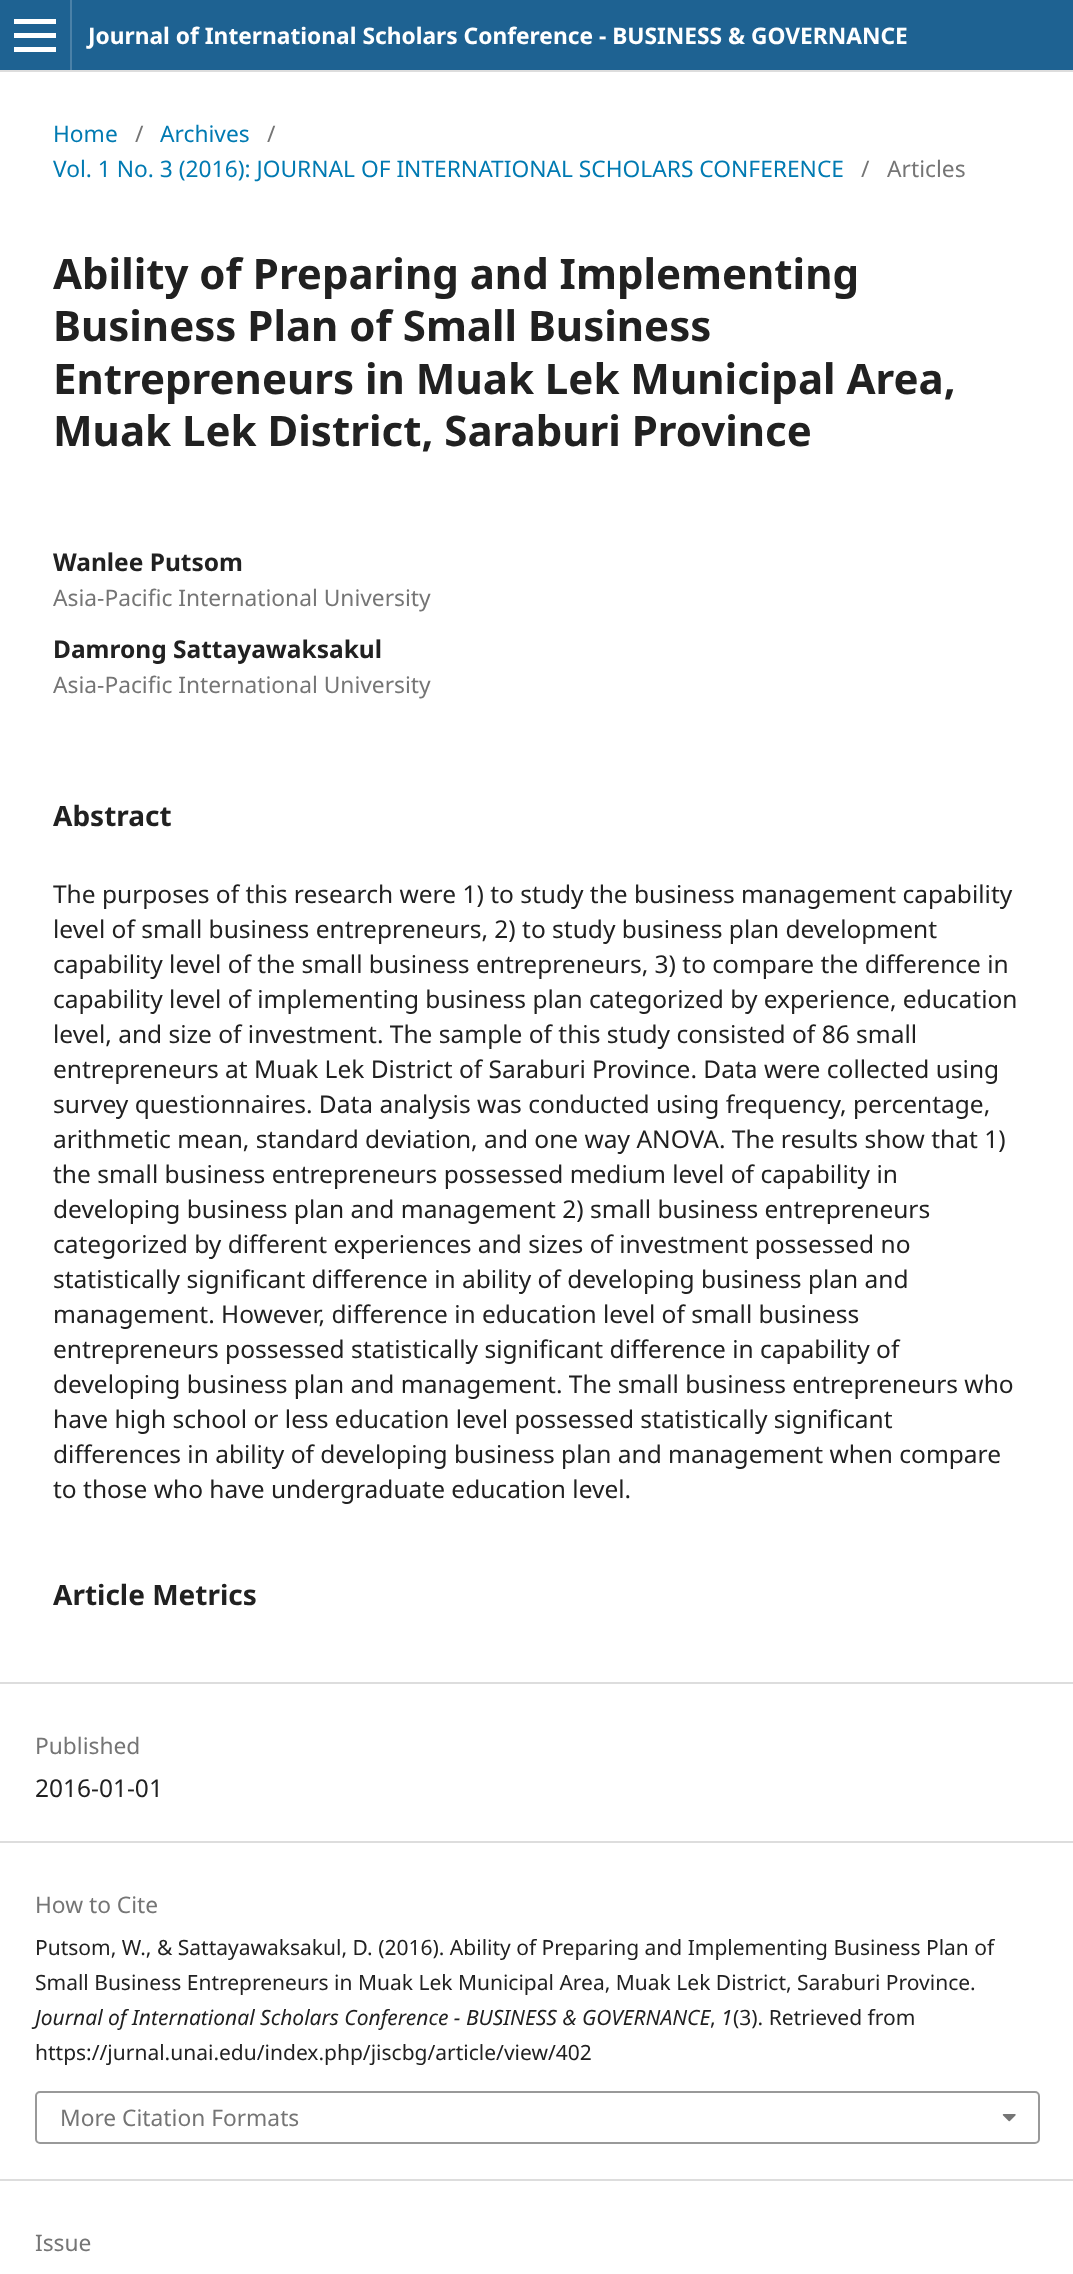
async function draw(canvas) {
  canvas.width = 1073
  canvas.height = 2274
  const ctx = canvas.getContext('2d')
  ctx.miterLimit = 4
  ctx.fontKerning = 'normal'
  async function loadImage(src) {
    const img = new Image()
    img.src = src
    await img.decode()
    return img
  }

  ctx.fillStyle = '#fff'
  ctx.fillRect(0, 0, 1073, 2274)
  ctx.fillStyle = '#1e6292'
  ctx.fillRect(0, 0, 1073, 70)
  ctx.fillStyle = '#ddd'
  ctx.fillRect(0, 70, 1073, 2)
  ctx.fillStyle = '#4b81a8'
  ctx.fillRect(70, 0, 2, 70)
  ctx.fillStyle = '#fff'
  ctx.fillRect(14, 47, 42, 5)
  ctx.fillRect(14, 19, 42, 5)
  ctx.fillRect(14, 33, 42, 5)
  ctx.font = 'bold 22.75px Noto Sans'
  ctx.fillText('Journal of International Scholars Conference - BUSINESS & GOVERNANCE', 88, 44)
  ctx.font = '22.75px Noto Sans'
  ctx.fillStyle = '#007ab2'
  ctx.fillText('Home', 53, 142)
  ctx.fillStyle = '#757575'
  ctx.fillText('/', 135, 142)
  ctx.fillStyle = '#007ab2'
  ctx.fillText('Archives', 160, 142)
  ctx.fillStyle = '#757575'
  ctx.fillText('/', 267, 142)
  ctx.fillStyle = '#007ab2'
  ctx.fillText('Vol. 1 No. 3 (2016): JOURNAL OF INTERNATIONAL SCHOLARS CONFERENCE', 53, 177)
  ctx.fillStyle = '#757575'
  ctx.fillText('/', 861, 177)
  ctx.fillText('Articles', 887, 177)
  ctx.font = 'bold 42px Noto Sans'
  ctx.fillStyle = '#212121'
  ctx.fillText('Ability of Preparing and Implementing', 53, 289)
  ctx.fillText('Business Plan of Small Business', 53, 341)
  ctx.fillText('Entrepreneurs in Muak Lek Municipal Area,', 53, 394)
  ctx.fillText('Muak Lek District, Saraburi Province', 53, 446)
  ctx.font = 'bold 24.5px Noto Sans'
  ctx.fillText('Wanlee Putsom', 53, 571)
  ctx.font = '22.75px Noto Sans'
  ctx.fillStyle = '#757575'
  ctx.fillText('Asia-Pacific International University', 53, 606)
  ctx.font = 'bold 24.5px Noto Sans'
  ctx.fillStyle = '#212121'
  ctx.fillText('Damrong Sattayawaksakul', 53, 658)
  ctx.font = '22.75px Noto Sans'
  ctx.fillStyle = '#757575'
  ctx.fillText('Asia-Pacific International University', 53, 693)
  ctx.font = 'bold 28px Noto Sans'
  ctx.fillStyle = '#212121'
  ctx.fillText('Abstract', 53, 826)
  ctx.font = '24.5px Noto Sans'
  ctx.fillText('The purposes of this research were 1) to study the business management capability', 53, 903)
  ctx.fillText('level of small business entrepreneurs, 2) to study business plan development', 53, 938)
  ctx.fillText('capability level of the small business entrepreneurs, 3) to compare the difference in', 53, 973)
  ctx.fillText('capability level of implementing business plan categorized by experience, education', 53, 1008)
  ctx.fillText('level, and size of investment. The sample of this study consisted of 86 small', 53, 1043)
  ctx.fillText('entrepreneurs at Muak Lek District of Saraburi Province. Data were collected using', 53, 1078)
  ctx.fillText('survey questionnaires. Data analysis was conducted using frequency, percentage,', 53, 1113)
  ctx.fillText('arithmetic mean, standard deviation, and one way ANOVA. The results show that 1)', 53, 1148)
  ctx.fillText('the small business entrepreneurs possessed medium level of capability in', 53, 1183)
  ctx.fillText('developing business plan and management 2) small business entrepreneurs', 53, 1218)
  ctx.fillText('categorized by different experiences and sizes of investment possessed no', 53, 1253)
  ctx.fillText('statistically significant difference in ability of developing business plan and', 53, 1288)
  ctx.fillText('management. However, difference in education level of small business', 53, 1323)
  ctx.fillText('entrepreneurs possessed statistically significant difference in capability of', 53, 1358)
  ctx.fillText('developing business plan and management. The small business entrepreneurs who', 53, 1393)
  ctx.fillText('have high school or less education level possessed statistically significant', 53, 1428)
  ctx.fillText('differences in ability of developing business plan and management when compare', 53, 1463)
  ctx.fillText('to those who have undergraduate education level.', 53, 1498)
  ctx.font = 'bold 28px Noto Sans'
  ctx.fillText('Article Metrics', 53, 1605)
  ctx.fillStyle = '#ddd'
  ctx.fillRect(0, 1682, 1073, 2)
  ctx.fillRect(0, 1841, 1073, 2)
  ctx.font = '22.75px Noto Sans'
  ctx.fillStyle = '#757575'
  ctx.fillText('Published', 35, 1754)
  ctx.font = '24.5px Noto Sans'
  ctx.fillStyle = '#212121'
  ctx.fillText('2016-01-01', 35, 1797)
  ctx.fillStyle = '#ddd'
  ctx.fillRect(0, 2179, 1073, 2)
  ctx.font = '22.75px Noto Sans'
  ctx.fillStyle = '#757575'
  ctx.fillText('How to Cite', 35, 1913)
  ctx.font = '21px Noto Sans'
  ctx.fillStyle = '#212121'
  ctx.fillText('Putsom, W., & Sattayawaksakul, D. (2016). Ability of Preparing and Implementing Business Plan of', 35, 1955)
  ctx.fillText('Small Business Entrepreneurs in Muak Lek Municipal Area, Muak Lek District, Saraburi Province.', 35, 1990)
  ctx.font = 'italic 21px Noto Sans'
  ctx.fillText('Journal of International Scholars Conference - BUSINESS & GOVERNANCE', 35, 2025)
  ctx.font = '21px Noto Sans'
  ctx.fillText(',', 710, 2025)
  ctx.font = 'italic 21px Noto Sans'
  ctx.fillText('1', 721, 2025)
  ctx.font = '21px Noto Sans'
  ctx.fillText('(3). Retrieved from', 733, 2025)
  ctx.fillText('https://jurnal.unai.edu/index.php/jiscbg/article/view/402', 35, 2060)
  ctx.beginPath()
  ctx.roundRect(36, 2092, 1003, 51, 4)
  ctx.strokeStyle = '#999'
  ctx.lineWidth = 2
  ctx.stroke()
  ctx.font = '22.75px Noto Sans'
  ctx.fillStyle = '#757575'
  ctx.fillText('More Citation Formats', 60, 2126)
  ctx.drawImage(await loadImage('image0.png'), 1002, 2114, 14, 8)
  ctx.fillText('Issue', 35, 2251)
}

draw(document.querySelector('canvas'))
